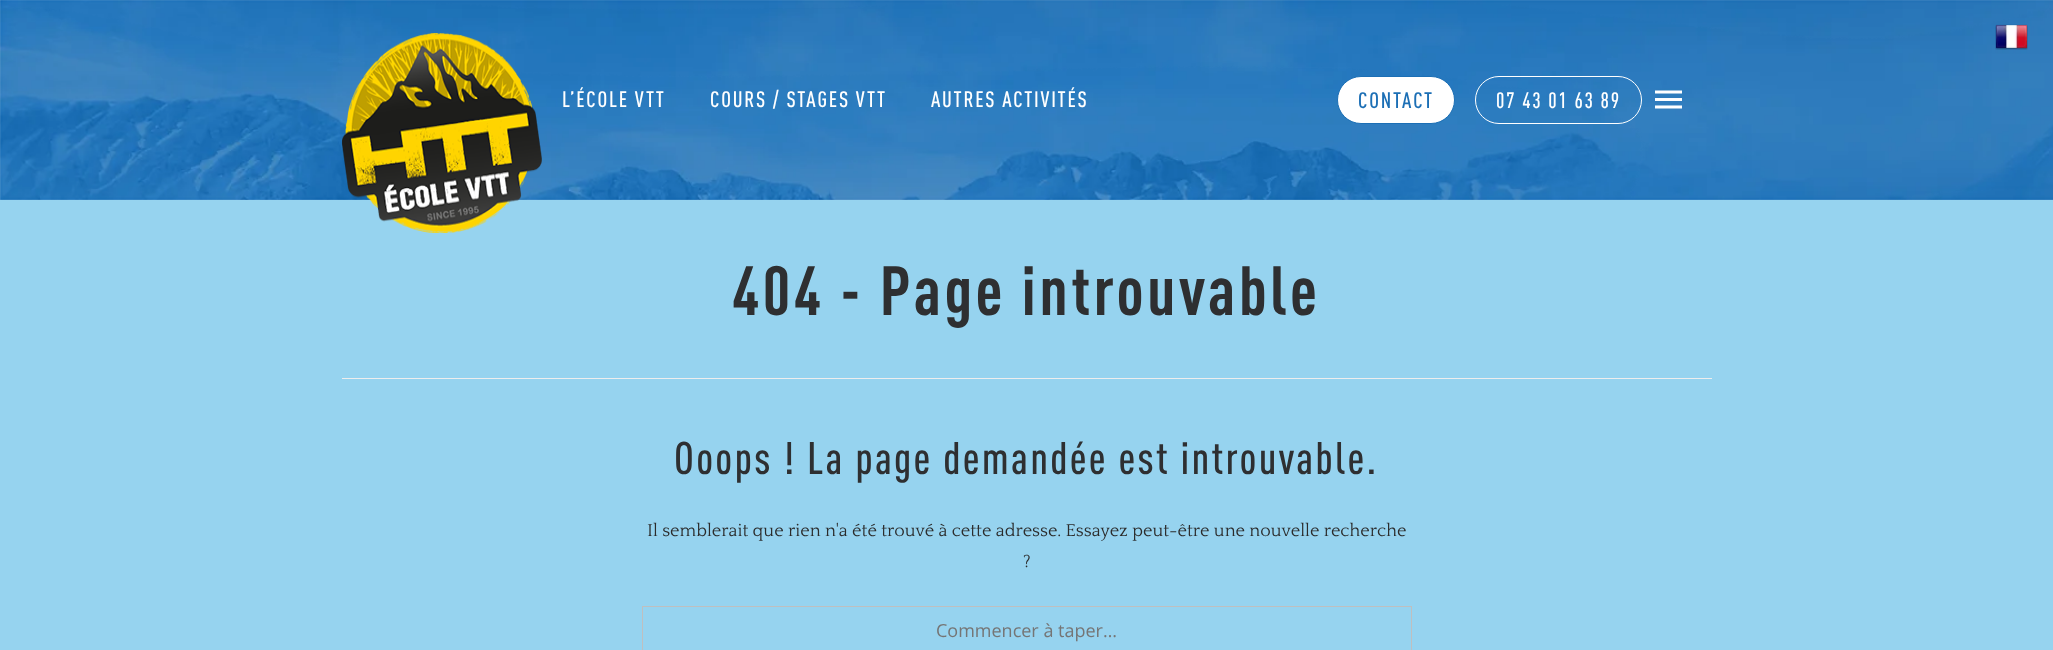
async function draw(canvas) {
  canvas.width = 2053
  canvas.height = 650
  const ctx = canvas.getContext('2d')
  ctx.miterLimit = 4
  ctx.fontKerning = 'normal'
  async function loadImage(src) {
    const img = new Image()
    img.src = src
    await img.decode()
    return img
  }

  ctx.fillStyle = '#fff'
  ctx.fillRect(0, 0, 2053, 650)
  ctx.drawImage(await loadImage('image1.png'), 0, 0, 2053, 200)
  ctx.drawImage(await loadImage('image0.png'), 1995, 24, 33, 26)
  ctx.fillStyle = '#96d3ef'
  ctx.fillRect(0, 200, 2053, 450)
  ctx.drawImage(await loadImage('image2.png'), 342, 33, 200, 200)
  ctx.letterSpacing = '1.75px'
  ctx.font = '500 22px DIN'
  ctx.fillStyle = '#fff'
  ctx.fillText('L’ÉCOLE VTT', 562, 107)
  ctx.fillText('COURS / STAGES VTT', 710, 107)
  ctx.fillText('AUTRES ACTIVITÉS', 931, 107)
  ctx.beginPath()
  ctx.roundRect(1337.5, 76.5, 117, 47, 23.5)
  ctx.fill()
  ctx.strokeStyle = '#1c6fb5'
  ctx.stroke()
  ctx.fillStyle = '#1c6fb5'
  ctx.fillText('CONTACT', 1358, 108)
  ctx.beginPath()
  ctx.roundRect(1475.5, 76.5, 166, 47, 23.5)
  ctx.strokeStyle = '#fff'
  ctx.stroke()
  ctx.fillStyle = '#fff'
  ctx.fillText('07 43 01 63 89', 1496, 108)
  ctx.drawImage(await loadImage('image3.png'), 1655, 90, 27, 19)
  ctx.fillStyle = '#ededed'
  ctx.fillRect(342, 378, 1370, 1)
  ctx.letterSpacing = '3.4px'
  ctx.font = 'bold 68.5px DIN'
  ctx.fillStyle = '#2e2f31'
  ctx.fillText('404 - Page introuvable', 732, 315)
  ctx.letterSpacing = '2.25px'
  ctx.font = '500 45px DIN'
  ctx.fillText('Ooops ! La page demandée est introuvable.', 674, 474)
  ctx.letterSpacing = '0px'
  ctx.font = '18px Quattrocento'
  ctx.fillStyle = '#2b2b2b'
  ctx.fillText('Il semblerait que rien n\'a été trouvé à cette adresse. Essayez peut-être une nouvelle recherche', 647, 536)
  ctx.fillText('?', 1023, 567)
  ctx.strokeStyle = '#bfbfbf'
  ctx.strokeRect(642.5, 606.5, 769, 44)
  ctx.font = '18px Open Sans'
  ctx.fillStyle = '#757575'
  ctx.fillText('Commencer à taper…', 936, 637)
}

draw(document.querySelector('canvas'))
